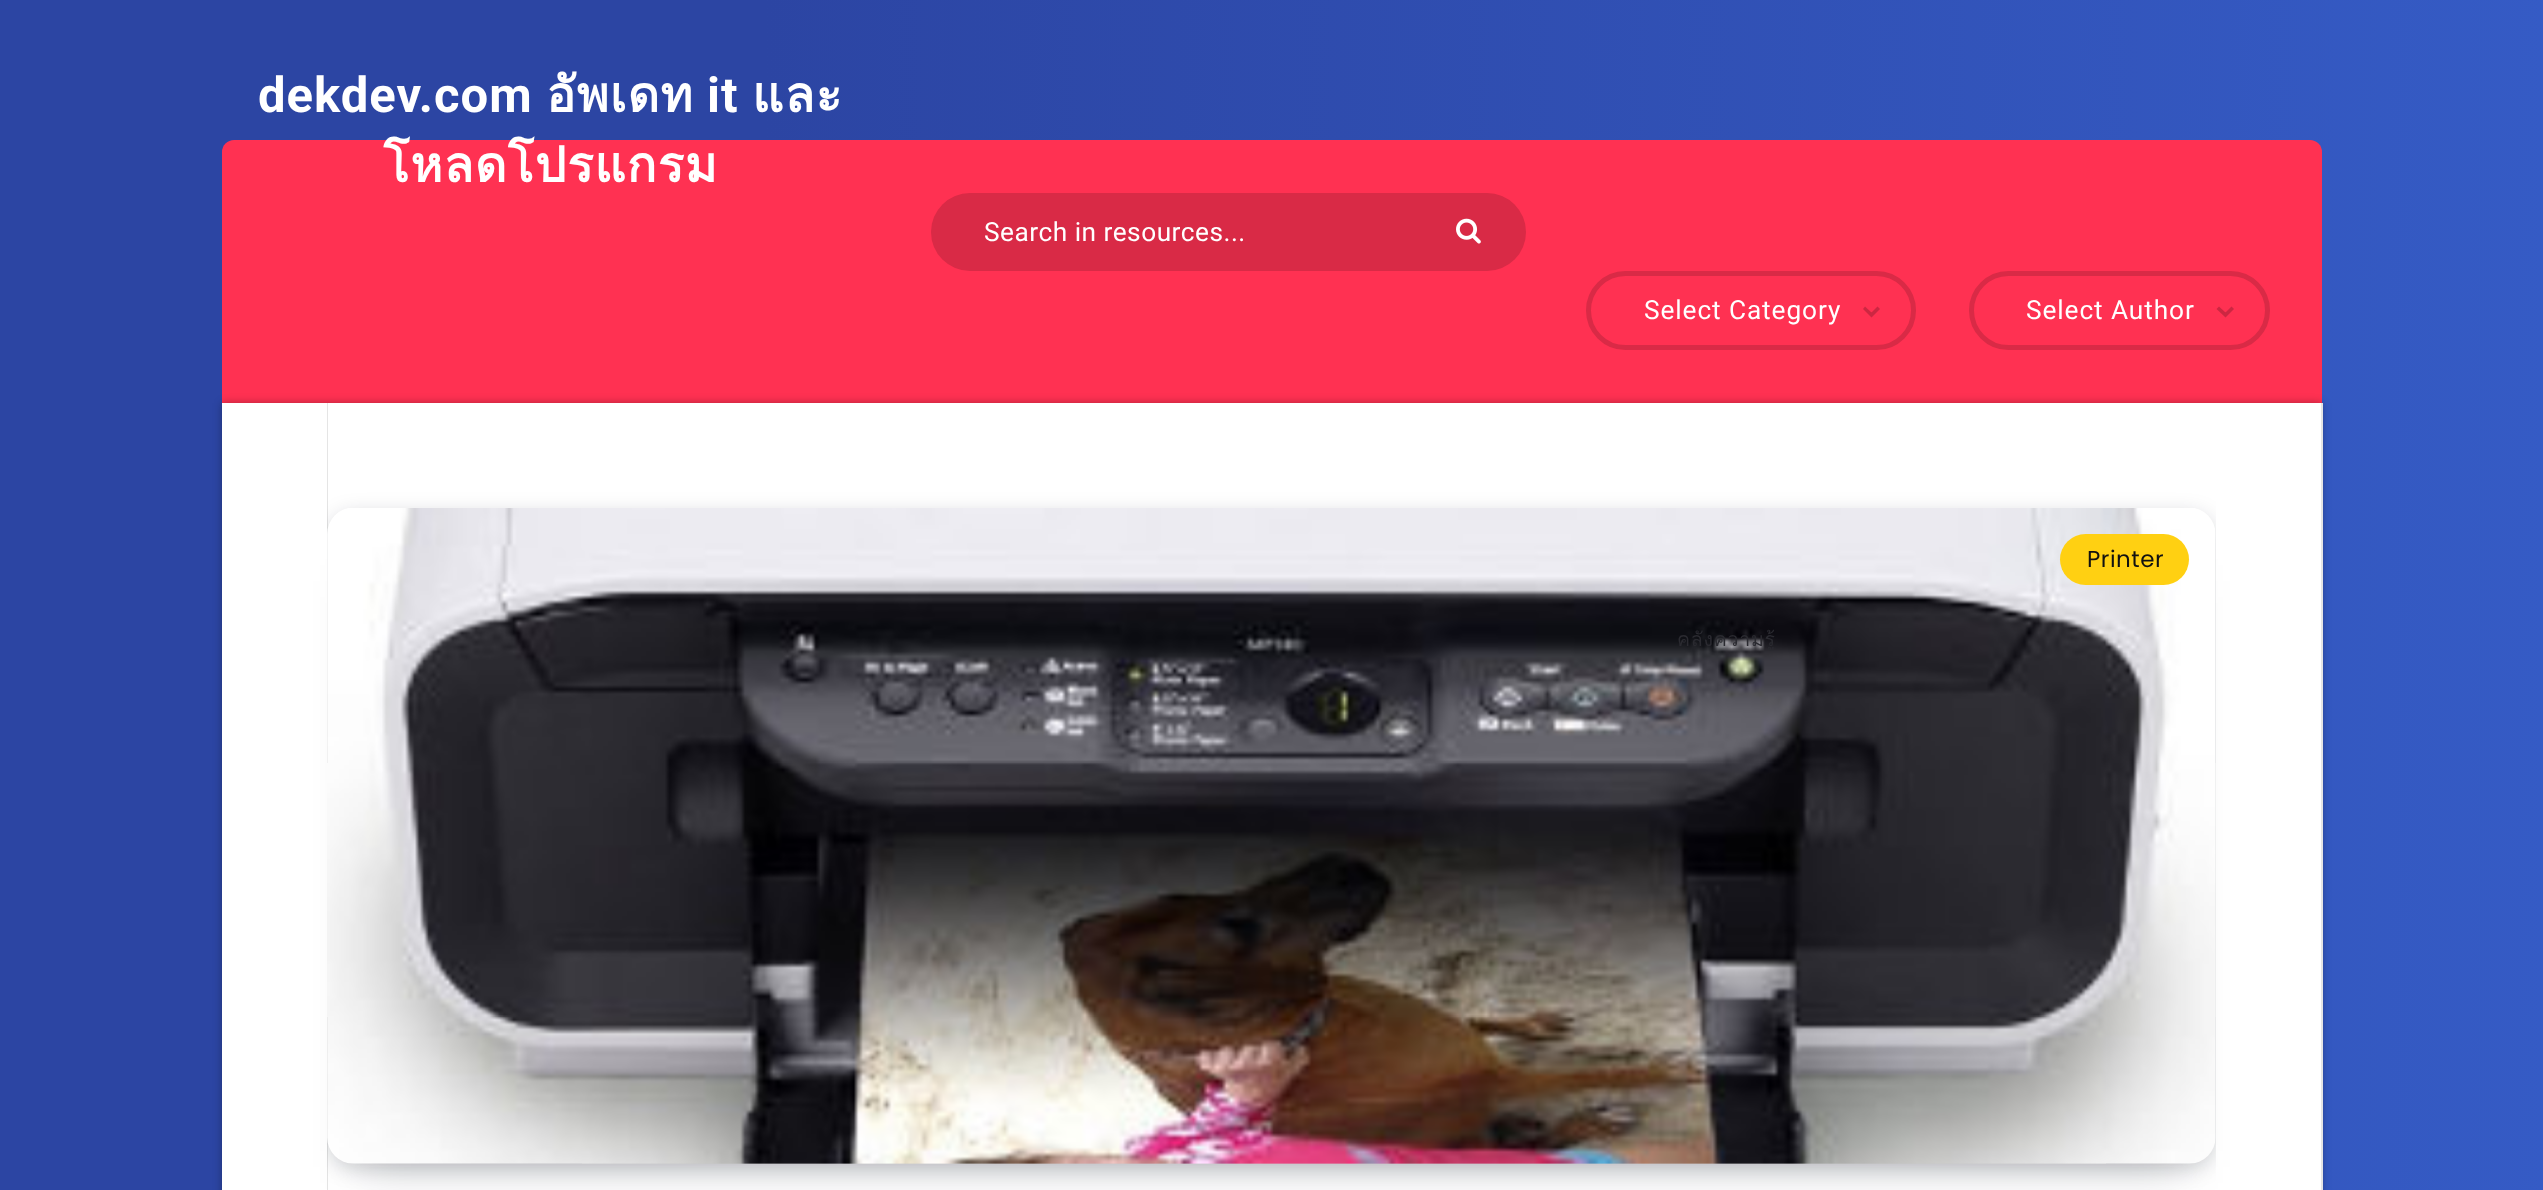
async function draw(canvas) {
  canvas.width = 2543
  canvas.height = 1190
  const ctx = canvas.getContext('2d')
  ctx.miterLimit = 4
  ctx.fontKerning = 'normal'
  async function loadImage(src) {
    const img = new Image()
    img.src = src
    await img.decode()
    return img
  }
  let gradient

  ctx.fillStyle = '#fff'
  ctx.fillRect(0, 0, 2543, 1190)
  gradient = ctx.createLinearGradient(0, 595, 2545, 595)
  gradient.addColorStop(0.3, '#2c45a3')
  gradient.addColorStop(1, '#355bc5')
  ctx.fillStyle = gradient
  ctx.fillRect(0, 0, 2543, 1190)
  ctx.letterSpacing = '1px'
  ctx.font = 'bold 49px Roboto'
  ctx.fillStyle = '#fff'
  ctx.fillText('dekdev.com', 258, 112)
  ctx.font = 'bold 49px Loma'
  ctx.fillText('อัพเดท', 546, 112)
  ctx.font = 'bold 49px Roboto'
  ctx.fillText('it', 707, 112)
  ctx.font = 'bold 49px Loma'
  ctx.fillText('และ', 752, 112)
  ctx.fillStyle = '#ff3152'
  ctx.beginPath()
  ctx.roundRect(222, 140, 2100, 263, [12, 12, 0, 0])
  ctx.fill()
  ctx.fillStyle = '#fff'
  ctx.fillText('โหลดโปรแกรม', 383, 182)
  ctx.fillStyle = '#d92a46'
  ctx.beginPath()
  ctx.roundRect(931, 193, 595, 78, 39)
  ctx.fill()
  ctx.letterSpacing = '0.5px'
  ctx.font = '26.25px Roboto'
  ctx.fillStyle = '#fff'
  ctx.fillText('Search in resources...', 984, 241)
  ctx.drawImage(await loadImage('image0.png'), 1456, 218, 25, 26)
  ctx.beginPath()
  ctx.roundRect(1588.5, 273.5, 325, 74, 37)
  ctx.strokeStyle = '#d92a46'
  ctx.lineWidth = 5
  ctx.stroke()
  ctx.letterSpacing = '0.9px'
  ctx.fillText('Select Category', 1644, 319)
  ctx.fillStyle = '#cc2742'
  ctx.beginPath()
  ctx.moveTo(1880, 309)
  ctx.lineTo(1871.5, 317.5)
  ctx.lineTo(1871.5, 312.5)
  ctx.lineTo(1877.5, 306.5)
  ctx.closePath()
  ctx.fill()
  ctx.fillStyle = '#00000033'
  ctx.beginPath()
  ctx.moveTo(1871.5, 317.5)
  ctx.lineTo(1863, 309)
  ctx.lineTo(1865, 306.5)
  ctx.lineTo(1871.5, 312.5)
  ctx.closePath()
  ctx.fill()
  ctx.fillStyle = '#0000004d'
  ctx.filter = 'blur(4.5px)'
  ctx.beginPath()
  ctx.rect(222, 403, 2100, 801)
  ctx.fill()
  ctx.filter = 'none'
  ctx.fillStyle = '#fff'
  ctx.fillRect(222, 403, 2099, 787)
  ctx.fillStyle = '#e5e5e5'
  ctx.fillRect(327, 403, 1, 787)
  ctx.fillStyle = '#070a1933'
  ctx.filter = 'blur(23.5px)'
  ctx.beginPath()
  ctx.rect(362, 581, 1819, 586)
  ctx.fill()
  ctx.filter = 'none'
  ctx.save()
  ctx.beginPath()
  ctx.rect(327, 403, 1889, 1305)
  ctx.clip()
  ctx.filter = 'blur(10.5px)'
  ctx.beginPath()
  ctx.roundRect(329, 515, 1885, 652, 25)
  ctx.fill()
  ctx.filter = 'none'
  ctx.restore()
  ctx.drawImage(await loadImage('image1.png'), 327, 508, 1889, 656)
  ctx.letterSpacing = '0.75px'
  ctx.font = '19.5px Loma'
  ctx.fillStyle = '#2a2a30'
  ctx.fillText('คลังความรู้', 1677, 646)
  ctx.beginPath()
  ctx.roundRect(1971.5, 273.5, 296, 74, 37)
  ctx.stroke()
  ctx.letterSpacing = '0.9px'
  ctx.font = '26.25px Roboto'
  ctx.fillStyle = '#fff'
  ctx.fillText('Select Author', 2026, 319)
  ctx.fillStyle = '#cc2742'
  ctx.beginPath()
  ctx.moveTo(2234, 309)
  ctx.lineTo(2225.5, 317.5)
  ctx.lineTo(2225.5, 312.5)
  ctx.lineTo(2231.5, 306.5)
  ctx.closePath()
  ctx.fill()
  ctx.fillStyle = '#00000033'
  ctx.beginPath()
  ctx.moveTo(2225.5, 317.5)
  ctx.lineTo(2216.5, 309)
  ctx.lineTo(2219, 306.5)
  ctx.lineTo(2225.5, 312.5)
  ctx.closePath()
  ctx.fill()
  ctx.fillStyle = '#e5e5e5'
  ctx.fillRect(2321, 403, 2, 787)
  ctx.fillStyle = '#ffd012'
  ctx.beginPath()
  ctx.roundRect(2060, 534, 129, 51, 25.5)
  ctx.fill()
  ctx.letterSpacing = '0.5px'
  ctx.font = '23px Poppins'
  ctx.fillStyle = '#111'
  ctx.fillText('Printer', 2087, 567)
}

draw(document.querySelector('canvas'))
